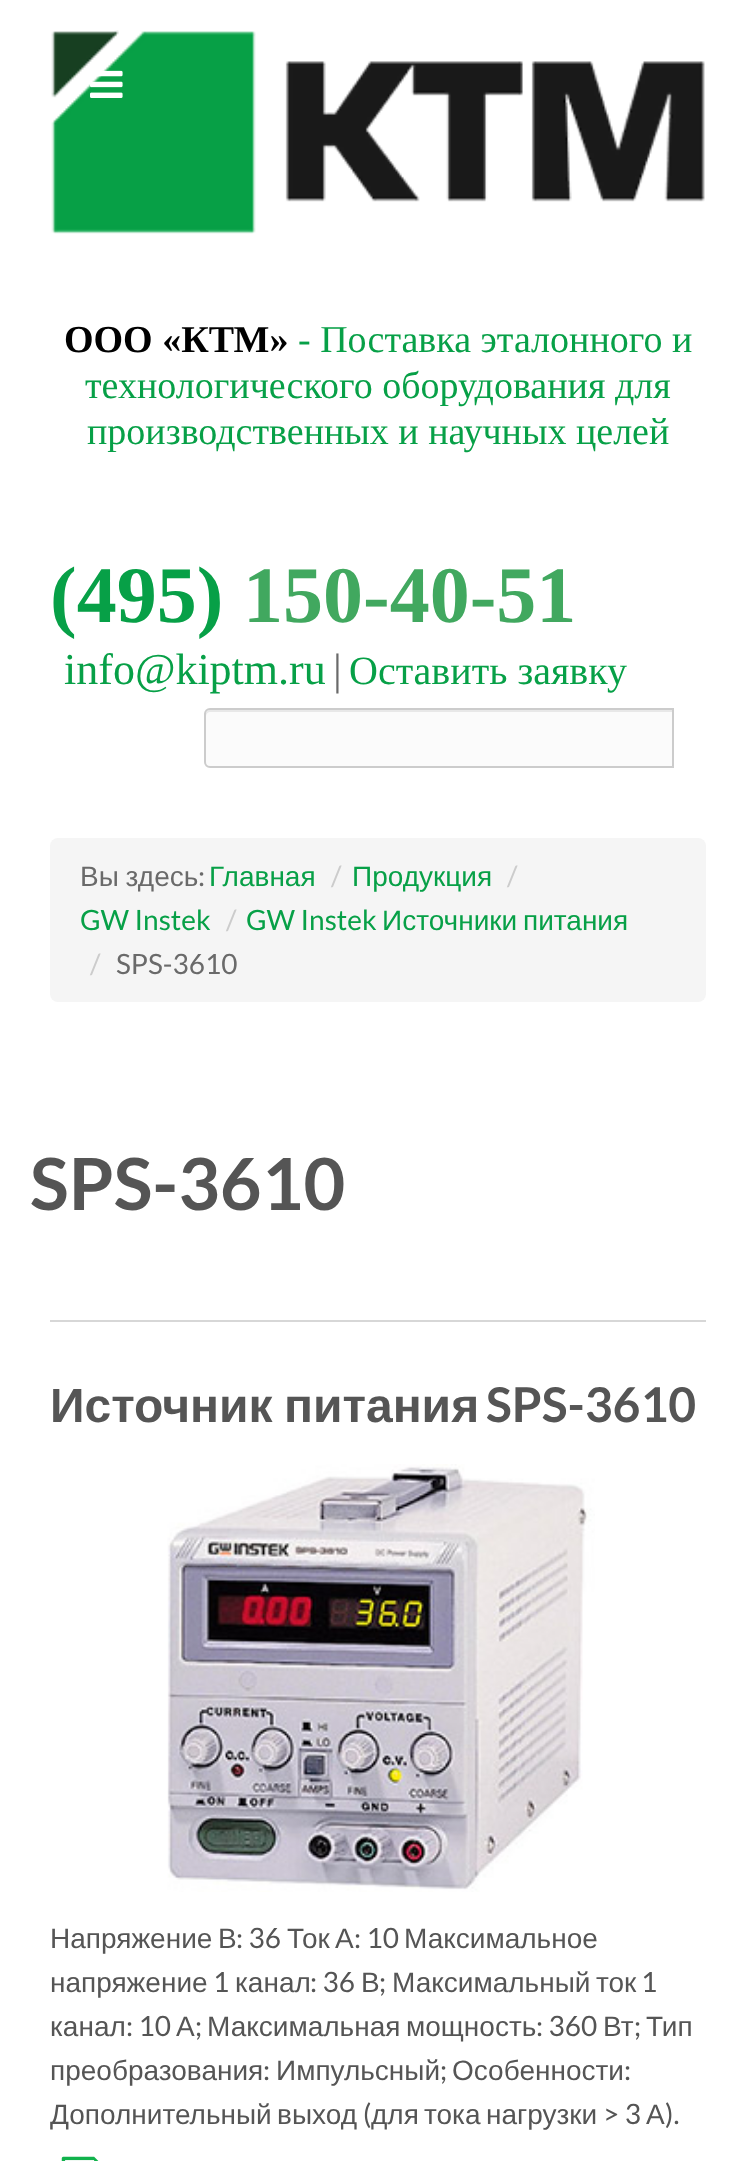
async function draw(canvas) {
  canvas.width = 756
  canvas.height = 2161
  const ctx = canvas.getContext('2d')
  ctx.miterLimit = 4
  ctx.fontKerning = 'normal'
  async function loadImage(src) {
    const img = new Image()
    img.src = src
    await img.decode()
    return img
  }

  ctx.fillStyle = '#fff'
  ctx.fillRect(0, 0, 756, 2161)
  ctx.drawImage(await loadImage('image0.png'), 51, 30, 654, 204)
  ctx.drawImage(await loadImage('image1.png'), 90, 70, 33, 28)
  ctx.font = 'bold 38px Liberation Serif'
  ctx.fillStyle = '#000'
  ctx.fillText('ООО «КТМ»', 64, 352)
  ctx.font = '38px Liberation Serif'
  ctx.fillStyle = '#07a047'
  ctx.fillText('- Поставка эталонного и', 298, 352)
  ctx.fillText('технологического оборудования для', 85, 398)
  ctx.fillText('производственных и научных целей', 87, 444)
  ctx.font = 'bold 80px Liberation Serif'
  ctx.fillText('(495)', 50, 622)
  ctx.fillStyle = '#41a85f'
  ctx.fillText('150-40-51', 243, 622)
  ctx.font = '44px Liberation Serif'
  ctx.fillStyle = '#07a047'
  ctx.fillText('info@kiptm.ru', 64, 684)
  ctx.fillStyle = '#6a6a6a'
  ctx.fillText('|', 333, 684)
  ctx.font = '40px Liberation Serif'
  ctx.fillStyle = '#07a047'
  ctx.fillText('Оставить заявку', 349, 684)
  ctx.fillStyle = '#fbfbfb'
  ctx.beginPath()
  ctx.roundRect(204, 708, 470, 60, [6, 0, 0, 6])
  ctx.fill()
  ctx.fillStyle = '#e8e8e8'
  ctx.beginPath()
  ctx.moveTo(210, 712)
  ctx.lineTo(672, 712)
  ctx.lineTo(672, 710)
  ctx.lineTo(210, 710)
  ctx.bezierCurveTo(208, 710, 206, 712, 206, 714)
  ctx.lineTo(206, 716)
  ctx.bezierCurveTo(206, 714, 208, 712, 210, 712)
  ctx.closePath()
  ctx.fill()
  ctx.beginPath()
  ctx.roundRect(205, 709, 468, 58, [5, 0, 0, 5])
  ctx.strokeStyle = '#ccc'
  ctx.lineWidth = 2
  ctx.stroke()
  ctx.fillStyle = '#f5f5f5'
  ctx.beginPath()
  ctx.roundRect(50, 838, 656, 164, 8)
  ctx.fill()
  ctx.wordSpacing = '-1px'
  ctx.font = '28px Liberation Sans'
  ctx.fillStyle = '#6a6a6a'
  ctx.fillText('Вы здесь', 80, 886)
  ctx.wordSpacing = '0px'
  ctx.font = '28px Lato'
  ctx.fillText(':', 198, 886)
  ctx.font = '28px Liberation Sans'
  ctx.fillStyle = '#07a047'
  ctx.fillText('Главная', 209, 886)
  ctx.font = '28px Lato'
  ctx.fillStyle = '#ccc'
  ctx.fillText('/', 331, 886)
  ctx.font = '28px Liberation Sans'
  ctx.fillStyle = '#07a047'
  ctx.fillText('Продукция', 352, 886)
  ctx.font = '28px Lato'
  ctx.fillStyle = '#ccc'
  ctx.fillText('/', 507, 886)
  ctx.fillStyle = '#07a047'
  ctx.fillText('GW Instek', 80, 930)
  ctx.fillStyle = '#ccc'
  ctx.fillText('/', 226, 930)
  ctx.fillStyle = '#07a047'
  ctx.fillText('GW Instek', 246, 930)
  ctx.font = '28px Liberation Sans'
  ctx.fillText('Источники', 382, 930)
  ctx.fillText('питания', 523, 930)
  ctx.font = '28px Lato'
  ctx.fillStyle = '#ccc'
  ctx.fillText('/', 90, 974)
  ctx.fillStyle = '#6a6a6a'
  ctx.fillText('SPS-3610', 116, 974)
  ctx.font = 'bold 72px Lato'
  ctx.fillStyle = '#555'
  ctx.fillText('SPS-3610', 30, 1210)
  ctx.fillStyle = '#d7d7d7'
  ctx.fillRect(50, 1320, 656, 2)
  ctx.wordSpacing = '-2px'
  ctx.font = 'bold 48px Liberation Sans'
  ctx.fillStyle = '#555'
  ctx.fillText('Источник питания', 50, 1422)
  ctx.wordSpacing = '0px'
  ctx.font = 'bold 48px Lato'
  ctx.fillText('SPS-3610', 486, 1422)
  ctx.drawImage(await loadImage('image2.png'), 167, 1464, 428, 428)
  ctx.font = '28px Liberation Sans'
  ctx.fillText('Напряжение', 50, 1948)
  ctx.fillText('В', 218, 1948)
  ctx.font = '28px Lato'
  ctx.fillText(': 36', 236, 1948)
  ctx.font = '28px Liberation Sans'
  ctx.fillText('Ток', 287, 1948)
  ctx.fillText('А', 335, 1948)
  ctx.font = '28px Lato'
  ctx.fillText(': 10', 354, 1948)
  ctx.font = '28px Liberation Sans'
  ctx.fillText('Максимальное', 404, 1948)
  ctx.fillText('напряжение', 50, 1992)
  ctx.font = '28px Lato'
  ctx.fillText('1', 213, 1992)
  ctx.font = '28px Liberation Sans'
  ctx.fillText('канал', 235, 1992)
  ctx.font = '28px Lato'
  ctx.fillText(': 36', 310, 1992)
  ctx.font = '28px Liberation Sans'
  ctx.fillText('В', 361, 1992)
  ctx.font = '28px Lato'
  ctx.fillText(';', 379, 1992)
  ctx.font = '28px Liberation Sans'
  ctx.fillText('Максимальный', 392, 1992)
  ctx.fillText('ток', 596, 1992)
  ctx.font = '28px Lato'
  ctx.fillText('1', 641, 1992)
  ctx.font = '28px Liberation Sans'
  ctx.fillText('канал', 50, 2036)
  ctx.font = '28px Lato'
  ctx.fillText(': 10', 126, 2036)
  ctx.font = '28px Liberation Sans'
  ctx.fillText('А', 176, 2036)
  ctx.font = '28px Lato'
  ctx.fillText(';', 195, 2036)
  ctx.font = '28px Liberation Sans'
  ctx.fillText('Максимальная', 207, 2036)
  ctx.fillText('мощность', 406, 2036)
  ctx.font = '28px Lato'
  ctx.fillText(': 360', 536, 2036)
  ctx.font = '28px Liberation Sans'
  ctx.fillText('Вт', 603, 2036)
  ctx.font = '28px Lato'
  ctx.fillText(';', 634, 2036)
  ctx.font = '28px Liberation Sans'
  ctx.fillText('Тип', 646, 2036)
  ctx.fillText('преобразования', 50, 2080)
  ctx.font = '28px Lato'
  ctx.fillText(':', 263, 2080)
  ctx.font = '28px Liberation Sans'
  ctx.fillText('Импульсный', 276, 2080)
  ctx.font = '28px Lato'
  ctx.fillText(';', 440, 2080)
  ctx.font = '28px Liberation Sans'
  ctx.fillText('Особенности', 452, 2080)
  ctx.font = '28px Lato'
  ctx.fillText(':', 624, 2080)
  ctx.font = '28px Liberation Sans'
  ctx.fillText('Дополнительный', 50, 2124)
  ctx.fillText('выход', 277, 2124)
  ctx.font = '28px Lato'
  ctx.fillText('(', 363, 2124)
  ctx.font = '28px Liberation Sans'
  ctx.fillText('для', 371, 2124)
  ctx.fillText('тока', 424, 2124)
  ctx.fillText('нагрузки', 486, 2124)
  ctx.font = '28px Lato'
  ctx.fillText('> 3', 603, 2124)
  ctx.font = '28px Liberation Sans'
  ctx.fillText('А', 646, 2124)
  ctx.font = '28px Lato'
  ctx.fillText(').', 665, 2124)
  ctx.drawImage(await loadImage('image3.png'), 61, 2156, 38, 5)
}

draw(document.querySelector('canvas'))
